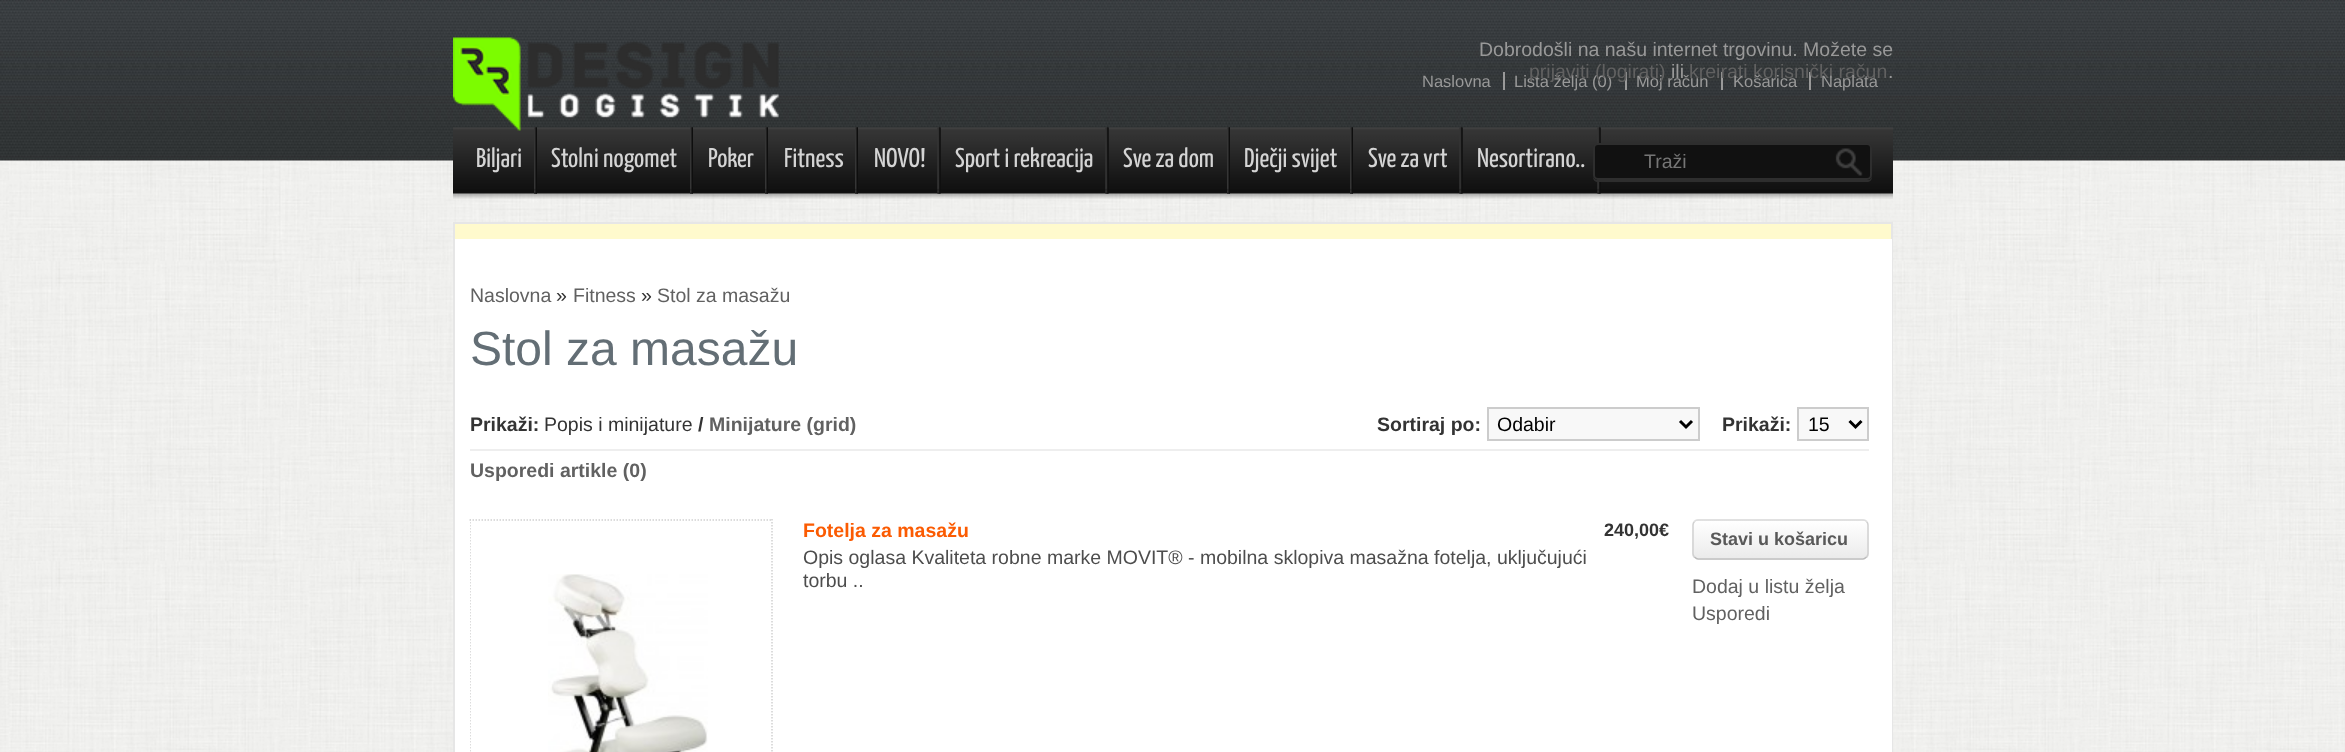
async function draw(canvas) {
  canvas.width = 2345
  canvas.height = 752
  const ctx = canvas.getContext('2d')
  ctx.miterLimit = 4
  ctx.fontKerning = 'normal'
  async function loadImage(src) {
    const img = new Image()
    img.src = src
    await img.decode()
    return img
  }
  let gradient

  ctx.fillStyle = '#fff'
  ctx.fillRect(0, 0, 2345, 752)
  ctx.drawImage(await loadImage('image0.png'), 0, 160, 2345, 592)
  ctx.drawImage(await loadImage('image1.png'), 0, 0, 2345, 161)
  ctx.drawImage(await loadImage('image2.png'), 453, 127, 1440, 72)
  ctx.drawImage(await loadImage('image3.png'), 534, 127, 3, 67)
  ctx.drawImage(await loadImage('image4.png'), 534, 127, 3, 67)
  ctx.font = '200 27px Yanone Kaffeesatz'
  ctx.fillStyle = '#d4d4d4'
  ctx.fillText('Biljari', 476, 167)
  ctx.drawImage(await loadImage('image5.png'), 690, 127, 3, 67)
  ctx.drawImage(await loadImage('image6.png'), 690, 127, 3, 67)
  ctx.fillText('Stolni nogomet', 551, 167)
  ctx.drawImage(await loadImage('image7.png'), 765, 127, 3, 67)
  ctx.drawImage(await loadImage('image4.png'), 765, 127, 3, 67)
  ctx.fillText('Poker', 708, 167)
  ctx.drawImage(await loadImage('image8.png'), 855, 127, 3, 67)
  ctx.drawImage(await loadImage('image4.png'), 855, 127, 3, 67)
  ctx.fillText('Fitness', 784, 167)
  ctx.drawImage(await loadImage('image9.png'), 937, 127, 4, 67)
  ctx.drawImage(await loadImage('image10.png'), 937, 127, 4, 67)
  ctx.fillText('NOVO!', 874, 167)
  ctx.drawImage(await loadImage('image11.png'), 1105, 127, 4, 67)
  ctx.drawImage(await loadImage('image10.png'), 1105, 127, 4, 67)
  ctx.fillText('Sport i rekreacija', 955, 167)
  ctx.drawImage(await loadImage('image12.png'), 1227, 127, 3, 67)
  ctx.drawImage(await loadImage('image13.png'), 1227, 127, 3, 67)
  ctx.fillText('Sve za dom', 1123, 167)
  ctx.drawImage(await loadImage('image14.png'), 1350, 127, 3, 67)
  ctx.drawImage(await loadImage('image13.png'), 1350, 127, 3, 67)
  ctx.fillText('Dječji svijet', 1244, 167)
  ctx.drawImage(await loadImage('image15.png'), 1459, 127, 4, 67)
  ctx.drawImage(await loadImage('image16.png'), 1459, 127, 4, 67)
  ctx.fillText('Sve za vrt', 1368, 167)
  ctx.drawImage(await loadImage('image17.png'), 1597, 127, 4, 67)
  ctx.drawImage(await loadImage('image10.png'), 1597, 127, 4, 67)
  ctx.fillText('Nesortirano..', 1477, 167)
  ctx.drawImage(await loadImage('image18.png'), 453, 37, 326, 94)
  ctx.font = '19.5px Liberation Sans'
  ctx.fillStyle = '#999'
  ctx.fillText('Dobrodošli na našu internet trgovinu. Možete se', 1479, 56)
  ctx.font = '16.5px Liberation Sans'
  ctx.fillText('Lista želja (0)', 1514, 87)
  ctx.fillRect(1625, 72, 2, 18)
  ctx.fillText('Moj račun', 1636, 87)
  ctx.font = '19.5px Liberation Sans'
  ctx.fillStyle = '#616161'
  ctx.fillText('prijaviti (logirati)', 1529, 78)
  ctx.fillStyle = '#999'
  ctx.fillText('ili', 1671, 78)
  ctx.fillRect(1721, 72, 2, 18)
  ctx.fillRect(1809, 72, 2, 18)
  ctx.fillStyle = '#616161'
  ctx.fillText('kreirati korisnički račun', 1689, 78)
  ctx.fillStyle = '#999'
  ctx.fillText('.', 1888, 78)
  ctx.font = '16.5px Liberation Sans'
  ctx.fillText('Naslovna', 1422, 87)
  ctx.fillRect(1503, 72, 2, 18)
  ctx.fillText('Košarica', 1733, 87)
  ctx.fillText('Naplata', 1821, 87)
  ctx.fillStyle = '#2e2e2e'
  ctx.beginPath()
  ctx.moveTo(1593, 176)
  ctx.lineTo(1593, 177)
  ctx.bezierCurveTo(1593, 180, 1595, 182, 1598, 182)
  ctx.lineTo(1867, 182)
  ctx.bezierCurveTo(1870, 182, 1872, 180, 1872, 177)
  ctx.lineTo(1872, 176)
  ctx.bezierCurveTo(1872, 178, 1870, 180, 1868, 180)
  ctx.lineTo(1598, 180)
  ctx.bezierCurveTo(1595, 180, 1593, 178, 1593, 176)
  ctx.closePath()
  ctx.fill()
  ctx.fillStyle = '#111'
  ctx.beginPath()
  ctx.roundRect(1594, 144, 277, 35, 4)
  ctx.fill()
  ctx.strokeStyle = '#2e2e2e'
  ctx.lineWidth = 2
  ctx.stroke()
  ctx.font = '19.5px Liberation Sans'
  ctx.fillStyle = '#757575'
  ctx.fillText('Traži', 1644, 168)
  ctx.drawImage(await loadImage('image19.png'), 1835, 148, 28, 28)
  ctx.fillStyle = '#fffacd'
  ctx.fillRect(455, 224, 1436, 15)
  ctx.strokeStyle = '#e6e6e6'
  ctx.strokeRect(454, 223, 1438, 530)
  ctx.fillStyle = '#fff'
  ctx.fillRect(455, 239, 1437, 513)
  ctx.fillStyle = '#616161'
  ctx.fillText('Naslovna', 470, 302)
  ctx.fillStyle = '#333'
  ctx.fillText('»', 556, 302)
  ctx.fillStyle = '#616161'
  ctx.fillText('Fitness', 573, 302)
  ctx.fillStyle = '#333'
  ctx.fillText('»', 641, 302)
  ctx.fillStyle = '#616161'
  ctx.fillText('Stol za masažu', 657, 302)
  ctx.font = '48px Liberation Sans'
  ctx.fillStyle = '#636e75'
  ctx.fillText('Stol za masažu', 470, 365)
  ctx.fillStyle = '#eee'
  ctx.fillRect(470, 449, 1399, 2)
  ctx.font = 'bold 19.5px Liberation Sans'
  ctx.fillStyle = '#333'
  ctx.fillText('Prikaži:', 470, 431)
  ctx.font = '19.5px Liberation Sans'
  ctx.fillText('Popis i minijature', 544, 431)
  ctx.font = 'bold 19.5px Liberation Sans'
  ctx.fillText('/', 698, 431)
  ctx.fillStyle = '#616161'
  ctx.fillText('Minijature (grid)', 709, 431)
  ctx.fillStyle = '#333'
  ctx.fillText('Sortiraj po:', 1377, 431)
  ctx.fillStyle = '#f8f8f8'
  ctx.beginPath()
  ctx.rect(1488, 408, 211, 32)
  ctx.fill()
  ctx.strokeStyle = '#ccc'
  ctx.stroke()
  ctx.beginPath()
  ctx.moveTo(1680, 421)
  ctx.lineTo(1686, 427)
  ctx.lineTo(1692, 421)
  ctx.strokeStyle = '#000'
  ctx.lineWidth = 3
  ctx.stroke()
  ctx.font = '19.5px Liberation Sans'
  ctx.fillStyle = '#000'
  ctx.fillText('Odabir', 1497, 431)
  ctx.font = 'bold 19.5px Liberation Sans'
  ctx.fillStyle = '#333'
  ctx.fillText('Prikaži:', 1722, 431)
  ctx.fillStyle = '#f8f8f8'
  ctx.beginPath()
  ctx.rect(1798, 408, 70, 32)
  ctx.fill()
  ctx.strokeStyle = '#ccc'
  ctx.lineWidth = 2
  ctx.stroke()
  ctx.beginPath()
  ctx.moveTo(1849.5, 421)
  ctx.lineTo(1855.5, 427)
  ctx.lineTo(1861.5, 421)
  ctx.strokeStyle = '#000'
  ctx.lineWidth = 3
  ctx.stroke()
  ctx.font = '19.5px Liberation Sans'
  ctx.fillStyle = '#000'
  ctx.fillText('15', 1808, 431)
  ctx.font = 'bold 19.5px Liberation Sans'
  ctx.fillStyle = '#616161'
  ctx.fillText('Usporedi artikle (0)', 470, 477)
  ctx.beginPath()
  ctx.moveTo(469.5, 520)
  ctx.lineTo(772.5, 520)
  ctx.strokeStyle = '#d1d1d1'
  ctx.lineWidth = 1.5
  ctx.setLineDash([1.5, 1.5])
  ctx.stroke()
  ctx.save()
  ctx.beginPath()
  ctx.rect(470, 519, 1399, 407)
  ctx.clip()
  ctx.beginPath()
  ctx.moveTo(470, 519)
  ctx.lineTo(470, 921)
  ctx.stroke()
  ctx.restore()
  ctx.drawImage(await loadImage('image20.png'), 548, 574, 160, 178)
  ctx.beginPath()
  ctx.moveTo(772, 519)
  ctx.lineTo(772, 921)
  ctx.stroke()
  ctx.fillStyle = '#fb5b02'
  ctx.fillText('Fotelja za masažu', 803, 537)
  ctx.font = 'bold 18px Liberation Sans'
  ctx.fillStyle = '#333'
  ctx.fillText('240,00€', 1604, 536)
  ctx.font = '19.5px Liberation Sans'
  ctx.fillStyle = '#4d4d4d'
  ctx.fillText('Opis oglasa Kvaliteta robne marke MOVIT® - mobilna sklopiva masažna fotelja, uključujući', 803, 564)
  ctx.fillText('torbu ..', 803, 587)
  ctx.save()
  ctx.beginPath()
  ctx.roundRect(1692, 519, 177, 41, 6)
  ctx.clip()
  gradient = ctx.createLinearGradient(1781, 483, 1781, 521)
  gradient.addColorStop(0, '#fff')
  gradient.addColorStop(1, '#ebebeb')
  ctx.fillStyle = gradient
  ctx.fillRect(1692, 519, 177, 2)
  gradient = ctx.createLinearGradient(1781, 521, 1781, 558)
  gradient.addColorStop(0, '#fff')
  gradient.addColorStop(1, '#ebebeb')
  ctx.fillStyle = gradient
  ctx.fillRect(1692, 521, 177, 37)
  ctx.restore()
  ctx.beginPath()
  ctx.moveTo(1694.5, 521.5)
  ctx.bezierCurveTo(1695.5, 520.5, 1696.5, 520, 1698, 520)
  ctx.lineTo(1863, 520)
  ctx.bezierCurveTo(1864.5, 520, 1865.5, 520.5, 1866.5, 521.5)
  ctx.strokeStyle = '#ddd'
  ctx.setLineDash([])
  ctx.stroke()
  ctx.beginPath()
  ctx.moveTo(1866.5, 521.5)
  ctx.bezierCurveTo(1867.5, 522.5, 1868, 523.5, 1868, 525)
  ctx.lineTo(1868, 553.5)
  ctx.bezierCurveTo(1868, 555, 1867.5, 556, 1866.5, 557)
  ctx.strokeStyle = '#d1d1d1'
  ctx.stroke()
  ctx.beginPath()
  ctx.moveTo(1866.5, 557)
  ctx.bezierCurveTo(1865.5, 558, 1864.5, 559, 1863, 559)
  ctx.lineTo(1698, 559)
  ctx.bezierCurveTo(1696.5, 559, 1695.5, 558, 1694.5, 557)
  ctx.strokeStyle = '#bbb'
  ctx.stroke()
  ctx.beginPath()
  ctx.moveTo(1694.5, 557)
  ctx.bezierCurveTo(1693.5, 556, 1693, 555, 1693, 553.5)
  ctx.lineTo(1693, 525)
  ctx.bezierCurveTo(1693, 523.5, 1693.5, 522.5, 1694.5, 521.5)
  ctx.strokeStyle = '#d1d1d1'
  ctx.stroke()
  ctx.font = 'bold 18px Liberation Sans'
  ctx.fillStyle = '#595959'
  ctx.fillText('Stavi u košaricu', 1710, 545)
  ctx.font = '19.5px Liberation Sans'
  ctx.fillStyle = '#616161'
  ctx.fillText('Dodaj u listu želja', 1692, 593)
  ctx.fillText('Usporedi', 1692, 620)
}

draw(document.querySelector('canvas'))
